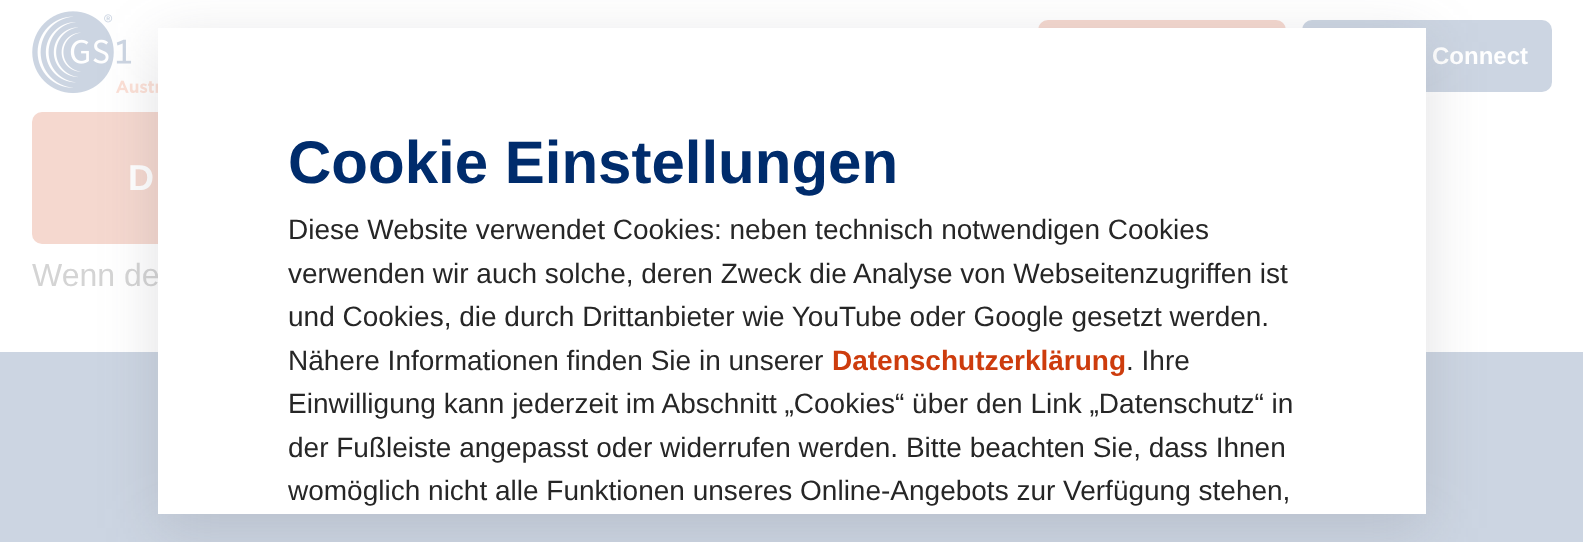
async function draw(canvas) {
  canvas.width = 1583
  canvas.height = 542
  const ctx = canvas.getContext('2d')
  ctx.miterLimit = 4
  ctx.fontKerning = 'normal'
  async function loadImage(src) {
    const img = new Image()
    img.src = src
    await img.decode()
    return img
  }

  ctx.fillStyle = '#fff'
  ctx.fillRect(0, 0, 1583, 542)
  ctx.drawImage(await loadImage('image0.png'), 32, 11, 126, 83)
  ctx.fillStyle = '#f5d8cf'
  ctx.beginPath()
  ctx.roundRect(1038, 20, 248, 72, 10)
  ctx.fill()
  ctx.fillStyle = '#ccd5e2'
  ctx.beginPath()
  ctx.roundRect(1302, 20, 250, 72, 10)
  ctx.fill()
  ctx.font = 'bold 24px Liberation Sans'
  ctx.fillStyle = '#fff'
  ctx.fillText('Connect', 1432, 64)
  ctx.fillStyle = '#f5d8cf'
  ctx.beginPath()
  ctx.roundRect(32, 112, 526, 132, 10)
  ctx.fill()
  ctx.font = 'bold 36px Liberation Sans'
  ctx.fillStyle = '#fff'
  ctx.fillText('D', 128, 190)
  ctx.font = '32px Liberation Sans'
  ctx.fillStyle = '#d4d4d4'
  ctx.fillText('Wenn de', 32, 286)
  ctx.fillStyle = '#ccd5e2'
  ctx.fillRect(0, 352, 1583, 190)
  ctx.fillStyle = '#64646f33'
  ctx.filter = 'blur(29px)'
  ctx.beginPath()
  ctx.rect(158, 42, 1268, 486)
  ctx.fill()
  ctx.filter = 'none'
  ctx.fillStyle = '#fff'
  ctx.fillRect(158, 28, 1268, 486)
  ctx.font = 'bold 60px Liberation Sans'
  ctx.fillStyle = '#002c6c'
  ctx.fillText('Cookie Einstellungen', 288, 183)
  ctx.font = '28px Liberation Sans'
  ctx.fillStyle = '#262626'
  ctx.fillText('Diese Website verwendet Cookies: neben technisch notwendigen Cookies', 288, 239)
  ctx.fillText('verwenden wir auch solche, deren Zweck die Analyse von Webseitenzugriffen ist', 288, 283)
  ctx.fillText('und Cookies, die durch Drittanbieter wie YouTube oder Google gesetzt werden.', 288, 326)
  ctx.fillText('Nähere Informationen finden Sie in unserer', 288, 370)
  ctx.font = 'bold 28px Liberation Sans'
  ctx.fillStyle = '#cd3c0d'
  ctx.fillText('Datenschutzerklärung', 832, 370)
  ctx.font = '28px Liberation Sans'
  ctx.fillStyle = '#262626'
  ctx.fillText('. Ihre', 1126, 370)
  ctx.fillText('Einwilligung kann jederzeit im Abschnitt „Cookies“ über den Link „Datenschutz“ in', 288, 413)
  ctx.fillText('der Fußleiste angepasst oder widerrufen werden. Bitte beachten Sie, dass Ihnen', 288, 457)
  ctx.fillText('womöglich nicht alle Funktionen unseres Online-Angebots zur Verfügung stehen,', 288, 500)
}

draw(document.querySelector('canvas'))
